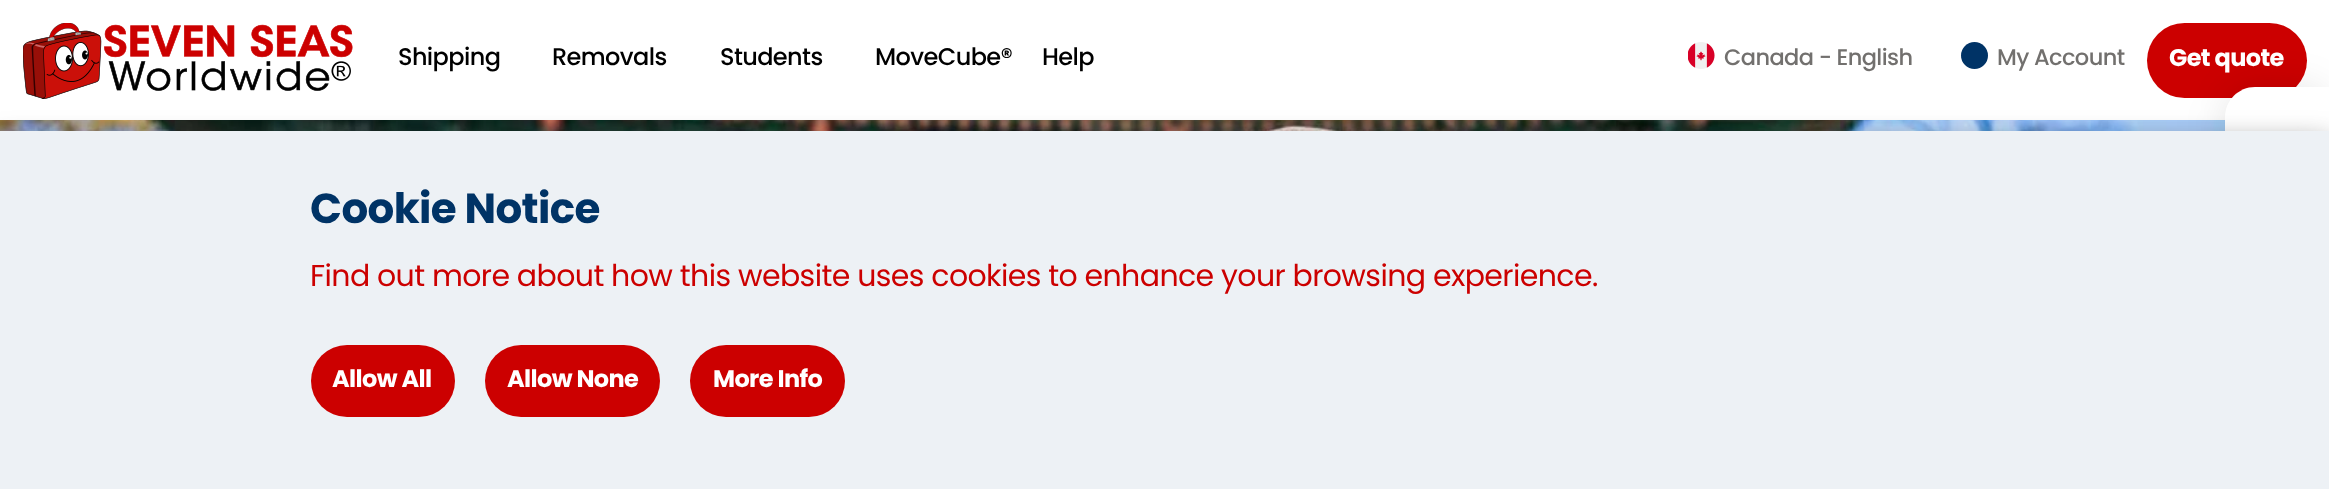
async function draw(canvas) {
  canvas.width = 2329
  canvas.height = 489
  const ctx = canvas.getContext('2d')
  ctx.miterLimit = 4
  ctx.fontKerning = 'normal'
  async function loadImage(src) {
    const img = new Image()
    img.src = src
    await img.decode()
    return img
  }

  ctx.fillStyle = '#fff'
  ctx.fillRect(0, 0, 2329, 489)
  ctx.drawImage(await loadImage('image2.png'), 0, 120, 2225, 11)
  ctx.fillStyle = '#0000000d'
  ctx.filter = 'blur(11px)'
  ctx.beginPath()
  ctx.rect(0, 0, 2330, 120)
  ctx.fill()
  ctx.filter = 'none'
  ctx.fillStyle = '#fff'
  ctx.fillRect(0, 0, 2329, 120)
  ctx.fillStyle = '#c00'
  ctx.beginPath()
  ctx.roundRect(2147, 23, 160, 75, 37.5)
  ctx.fill()
  ctx.fillStyle = '#0000001a'
  ctx.filter = 'blur(19px)'
  ctx.beginPath()
  ctx.roundRect(2225, 87, 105, 315, 30)
  ctx.fill()
  ctx.filter = 'none'
  ctx.fillStyle = '#fff'
  ctx.beginPath()
  ctx.moveTo(2255, 87)
  ctx.lineTo(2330, 87)
  ctx.lineTo(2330, 192)
  ctx.lineTo(2225, 192)
  ctx.lineTo(2225, 117)
  ctx.bezierCurveTo(2225, 100.5, 2238.5, 87, 2255, 87)
  ctx.closePath()
  ctx.fill()
  ctx.drawImage(await loadImage('image0.png'), 23, 23, 330, 76)
  ctx.letterSpacing = '-0.6px'
  ctx.font = '500 24px Poppins'
  ctx.fillStyle = '#000'
  ctx.fillText('Shipping', 398, 65)
  ctx.fillText('Removals', 552, 65)
  ctx.fillText('Students', 720, 65)
  ctx.fillText('MoveCube®', 875, 65)
  ctx.fillText('Help', 1042, 65)
  ctx.drawImage(await loadImage('image1.png'), 1688, 42, 27, 27)
  ctx.font = '500 22.5px Poppins'
  ctx.fillStyle = '#72706e'
  ctx.fillText('Canada - English', 1724, 65)
  ctx.fillStyle = '#036'
  ctx.beginPath()
  ctx.arc(1974.5, 55.5, 13.5, 0, 2 * Math.PI)
  ctx.fill()
  ctx.fillStyle = '#72706e'
  ctx.fillText('My Account', 1997, 65)
  ctx.font = 'bold 24px Poppins'
  ctx.fillStyle = '#fff'
  ctx.fillText('Get quote', 2169, 66)
  ctx.fillStyle = '#555'
  ctx.filter = 'blur(15px)'
  ctx.beginPath()
  ctx.rect(0, 146, 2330, 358)
  ctx.fill()
  ctx.filter = 'none'
  ctx.fillStyle = '#edf1f5'
  ctx.fillRect(0, 131, 2329, 358)
  ctx.font = 'bold 42px Poppins'
  ctx.fillStyle = '#036'
  ctx.fillText('Cookie Notice', 310, 223)
  ctx.font = '30px Poppins'
  ctx.fillStyle = '#c00'
  ctx.fillText('Find out more about how this website uses cookies to enhance your browsing experience.', 310, 286)
  ctx.beginPath()
  ctx.roundRect(311, 345, 144, 72, 36)
  ctx.fill()
  ctx.font = 'bold 24px Poppins'
  ctx.fillStyle = '#fff'
  ctx.fillText('Allow All', 332, 387)
  ctx.fillStyle = '#c00'
  ctx.beginPath()
  ctx.roundRect(485, 345, 175, 72, 36)
  ctx.fill()
  ctx.fillStyle = '#fff'
  ctx.fillText('Allow None', 507, 387)
  ctx.fillStyle = '#c00'
  ctx.beginPath()
  ctx.roundRect(690, 345, 155, 72, 36)
  ctx.fill()
  ctx.fillStyle = '#fff'
  ctx.fillText('More Info', 713, 387)
}

draw(document.querySelector('canvas'))
